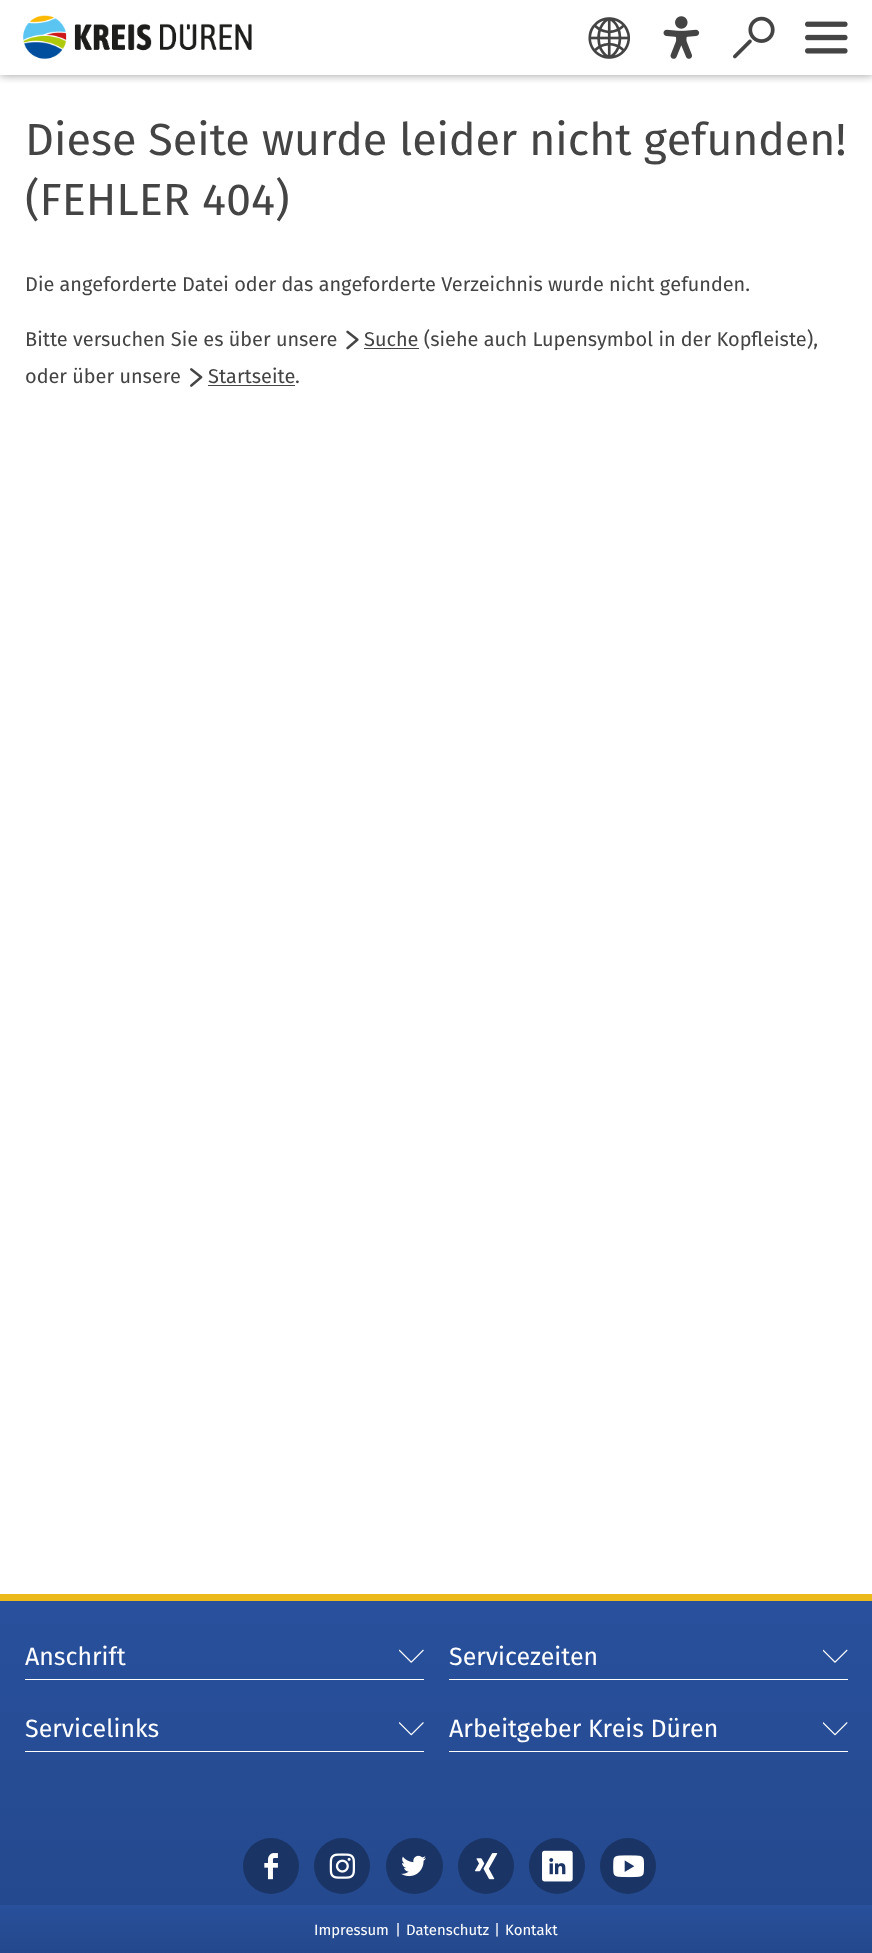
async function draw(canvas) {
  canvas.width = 872
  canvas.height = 1953
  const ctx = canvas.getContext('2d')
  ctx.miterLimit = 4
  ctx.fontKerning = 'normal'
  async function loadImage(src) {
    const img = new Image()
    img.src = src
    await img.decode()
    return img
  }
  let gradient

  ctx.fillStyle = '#fff'
  ctx.fillRect(0, 0, 872, 1953)
  ctx.save()
  ctx.beginPath()
  ctx.rect(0, 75, 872, 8)
  ctx.clip()
  ctx.fillStyle = '#00000066'
  ctx.filter = 'blur(5px)'
  ctx.beginPath()
  ctx.rect(0, 0, 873, 75)
  ctx.fill()
  ctx.filter = 'none'
  ctx.restore()
  ctx.drawImage(await loadImage('image0.png'), 22, 15, 230, 45)
  ctx.drawImage(await loadImage('image1.png'), 588, 17, 42, 42)
  ctx.drawImage(await loadImage('image2.png'), 663, 16, 37, 43)
  ctx.drawImage(await loadImage('image3.png'), 733, 16, 42, 43)
  ctx.drawImage(await loadImage('image4.png'), 805, 21, 43, 33)
  ctx.font = '45px Fira Sans'
  ctx.fillStyle = '#444'
  ctx.fillText('Diese Seite wurde leider nicht gefunden!', 25, 155)
  ctx.fillText('(FEHLER 404)', 25, 215)
  ctx.font = '20px Fira Sans'
  ctx.fillText('Die angeforderte Datei oder das angeforderte Verzeichnis wurde nicht gefunden.', 25, 291)
  ctx.fillText('Bitte versuchen Sie es über unsere', 25, 346)
  ctx.drawImage(await loadImage('image5.png'), 346, 330, 13, 20)
  ctx.fillRect(364, 348, 55, 1)
  ctx.fillText('Suche (siehe auch Lupensymbol in der Kopfleiste),', 364, 346)
  ctx.fillText('oder über unsere', 25, 383)
  ctx.drawImage(await loadImage('image6.png'), 190, 368, 13, 19)
  ctx.fillText('Startseite.', 208, 383)
  ctx.fillRect(208, 385, 87, 1)
  gradient = ctx.createLinearGradient(436, 1601, 436, 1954)
  gradient.addColorStop(0, '#28509c')
  gradient.addColorStop(1, '#24488c')
  ctx.fillStyle = gradient
  ctx.fillRect(0, 1601, 872, 303)
  ctx.fillStyle = '#ebb919'
  ctx.fillRect(0, 1594, 872, 7)
  ctx.fillStyle = '#fff'
  ctx.fillRect(25, 1679, 399, 1)
  ctx.font = '25px Fira Sans'
  ctx.fillText('Anschrift', 25, 1665)
  ctx.drawImage(await loadImage('image7.png'), 399, 1649, 25, 14)
  ctx.fillRect(449, 1679, 399, 1)
  ctx.fillText('Servicezeiten', 449, 1665)
  ctx.drawImage(await loadImage('image8.png'), 823, 1649, 25, 14)
  ctx.fillRect(25, 1751, 399, 1)
  ctx.fillText('Servicelinks', 25, 1737)
  ctx.drawImage(await loadImage('image9.png'), 399, 1722, 25, 14)
  ctx.fillRect(449, 1751, 399, 1)
  ctx.fillText('Arbeitgeber Kreis Düren', 449, 1737)
  ctx.drawImage(await loadImage('image10.png'), 823, 1722, 25, 14)
  ctx.fillStyle = '#1a3465'
  ctx.beginPath()
  ctx.arc(271, 1866, 28, 0, 2 * Math.PI)
  ctx.fill()
  ctx.drawImage(await loadImage('image11.png'), 264, 1853, 14, 27)
  ctx.beginPath()
  ctx.arc(342, 1866, 28, 0, 2 * Math.PI)
  ctx.fill()
  ctx.drawImage(await loadImage('image12.png'), 329, 1853, 26, 26)
  ctx.beginPath()
  ctx.roundRect(386, 1838, 57, 56, 28)
  ctx.fill()
  ctx.drawImage(await loadImage('image13.png'), 401, 1855, 25, 22)
  ctx.beginPath()
  ctx.arc(486, 1866, 28, 0, 2 * Math.PI)
  ctx.fill()
  ctx.drawImage(await loadImage('image14.png'), 475, 1853, 23, 27)
  ctx.beginPath()
  ctx.arc(557, 1866, 28, 0, 2 * Math.PI)
  ctx.fill()
  ctx.drawImage(await loadImage('image15.png'), 542, 1850, 31, 32)
  ctx.beginPath()
  ctx.arc(628, 1866, 28, 0, 2 * Math.PI)
  ctx.fill()
  ctx.drawImage(await loadImage('image16.png'), 613, 1855, 31, 23)
  gradient = ctx.createLinearGradient(436, 1858, 436, 1905)
  gradient.addColorStop(0, '#28509b')
  gradient.addColorStop(1, '#24488c')
  ctx.fillStyle = gradient
  ctx.fillRect(0, 1904, 872, 1)
  gradient = ctx.createLinearGradient(436, 1905, 436, 1953)
  gradient.addColorStop(0, '#28509b')
  gradient.addColorStop(1, '#24488c')
  ctx.fillStyle = gradient
  ctx.fillRect(0, 1905, 872, 48)
  ctx.font = '15px Fira Sans'
  ctx.fillStyle = '#fff'
  ctx.fillText('Impressum', 314, 1935)
  ctx.fillText('|', 395, 1935)
  ctx.fillText('Datenschutz', 406, 1935)
  ctx.fillText('|', 494, 1935)
  ctx.fillText('Kontakt', 505, 1935)
}

draw(document.querySelector('canvas'))
